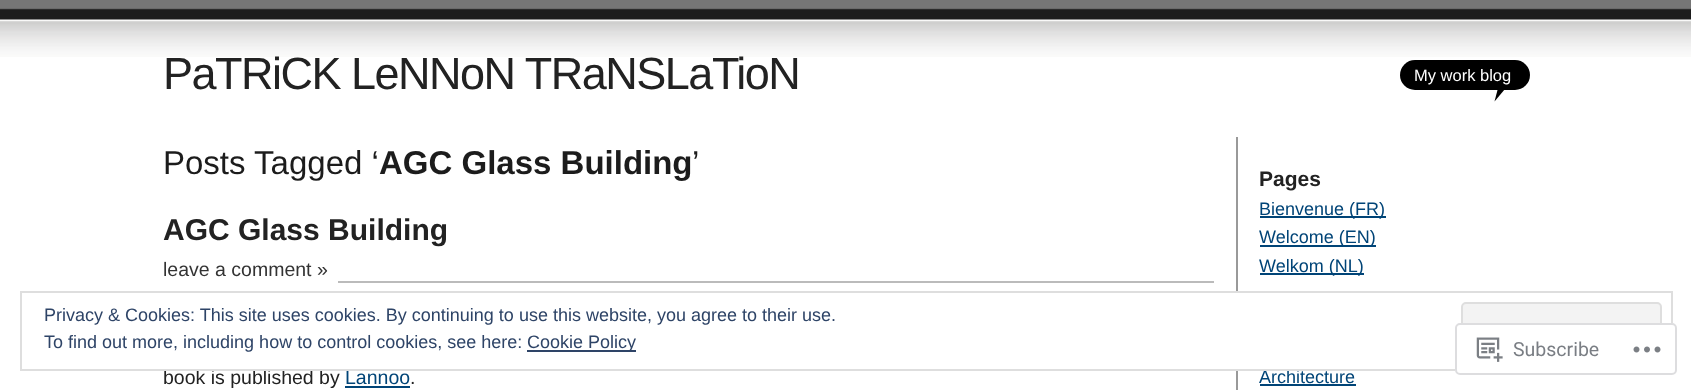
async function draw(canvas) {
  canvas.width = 1691
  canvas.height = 390
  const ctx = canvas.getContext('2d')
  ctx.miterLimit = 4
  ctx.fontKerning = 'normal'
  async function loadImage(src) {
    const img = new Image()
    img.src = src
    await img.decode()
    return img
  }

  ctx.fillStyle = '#fff'
  ctx.fillRect(0, 0, 1691, 390)
  ctx.drawImage(await loadImage('image0.png'), 0, 0, 1691, 57)
  ctx.letterSpacing = '-1.5px'
  ctx.font = '45px Liberation Sans'
  ctx.fillStyle = '#222'
  ctx.fillText('PaTRiCK LeNNoN TRaNSLaTioN', 163, 89)
  ctx.fillStyle = '#000'
  ctx.beginPath()
  ctx.moveTo(1513, 79.5)
  ctx.lineTo(1494.5, 101.5)
  ctx.lineTo(1502.5, 71)
  ctx.closePath()
  ctx.fill()
  ctx.beginPath()
  ctx.roundRect(1400, 60, 130, 30, 15)
  ctx.fill()
  ctx.letterSpacing = '0px'
  ctx.font = '16.5px Liberation Sans'
  ctx.fillStyle = '#fff'
  ctx.fillText('My work blog', 1414, 81)
  ctx.font = '33px Liberation Sans'
  ctx.fillStyle = '#1c1c1c'
  ctx.fillText('Posts Tagged ‘', 163, 174)
  ctx.font = 'bold 33px Liberation Sans'
  ctx.fillText('AGC Glass Building', 379, 174)
  ctx.font = '33px Liberation Sans'
  ctx.fillText('’', 692, 174)
  ctx.font = 'bold 30px Liberation Sans'
  ctx.fillStyle = '#222'
  ctx.fillText('AGC Glass Building', 163, 240)
  ctx.fillStyle = '#bbb'
  ctx.fillRect(338, 281, 876, 2)
  ctx.font = '19.5px Liberation Sans'
  ctx.fillStyle = '#333'
  ctx.fillText('leave a comment »', 163, 276)
  ctx.fillStyle = '#222'
  ctx.fillText('book is published by', 163, 384)
  ctx.fillStyle = '#047'
  ctx.fillText('Lannoo', 345, 384)
  ctx.fillRect(345, 386, 65, 2)
  ctx.fillStyle = '#222'
  ctx.fillText('.', 410, 384)
  ctx.fillStyle = '#999'
  ctx.fillRect(1236, 137, 2, 253)
  ctx.font = 'bold 21px Liberation Sans'
  ctx.fillStyle = '#222'
  ctx.fillText('Pages', 1259, 186)
  ctx.fillStyle = '#047'
  ctx.fillRect(1260, 216, 126, 2)
  ctx.font = '18px Liberation Sans'
  ctx.fillText('Bienvenue (FR)', 1259, 215)
  ctx.fillRect(1260, 245, 116, 2)
  ctx.fillText('Welcome (EN)', 1259, 243)
  ctx.fillRect(1260, 273, 104, 2)
  ctx.fillText('Welkom (NL)', 1259, 272)
  ctx.fillText('Architecture', 1259, 383)
  ctx.fillRect(1260, 384, 96, 2)
  ctx.fillStyle = '#fff'
  ctx.fillRect(1236, 293, 2, 76)
  ctx.strokeStyle = '#dedede'
  ctx.lineWidth = 2
  ctx.strokeRect(21, 292, 1651, 78)
  ctx.fillStyle = '#2e4467'
  ctx.fillText('Privacy & Cookies: This site uses cookies. By continuing to use this website, you agree to their use.', 44, 321)
  ctx.fillStyle = '#f3f3f3'
  ctx.beginPath()
  ctx.roundRect(1462, 303, 199, 56, 4)
  ctx.fill()
  ctx.stroke()
  ctx.fillStyle = '#2e4467'
  ctx.fillText('To find out more, including how to control cookies, see here:', 44, 348)
  ctx.fillRect(527, 350, 109, 2)
  ctx.fillText('Cookie Policy', 527, 348)
  ctx.fillStyle = '#fffffffa'
  ctx.beginPath()
  ctx.roundRect(1455, 323, 222, 52, 5)
  ctx.fill()
  ctx.beginPath()
  ctx.roundRect(1456, 324, 220, 50, 4)
  ctx.strokeStyle = '#dcdcdefa'
  ctx.stroke()
  ctx.drawImage(await loadImage('image1.png'), 1476, 337, 27, 25)
  ctx.font = '19.5px Roboto'
  ctx.fillStyle = '#7a7e84'
  ctx.fillText('Subscribe', 1513, 356)
  ctx.drawImage(await loadImage('image2.png'), 1633, 346, 28, 7)
}

draw(document.querySelector('canvas'))
